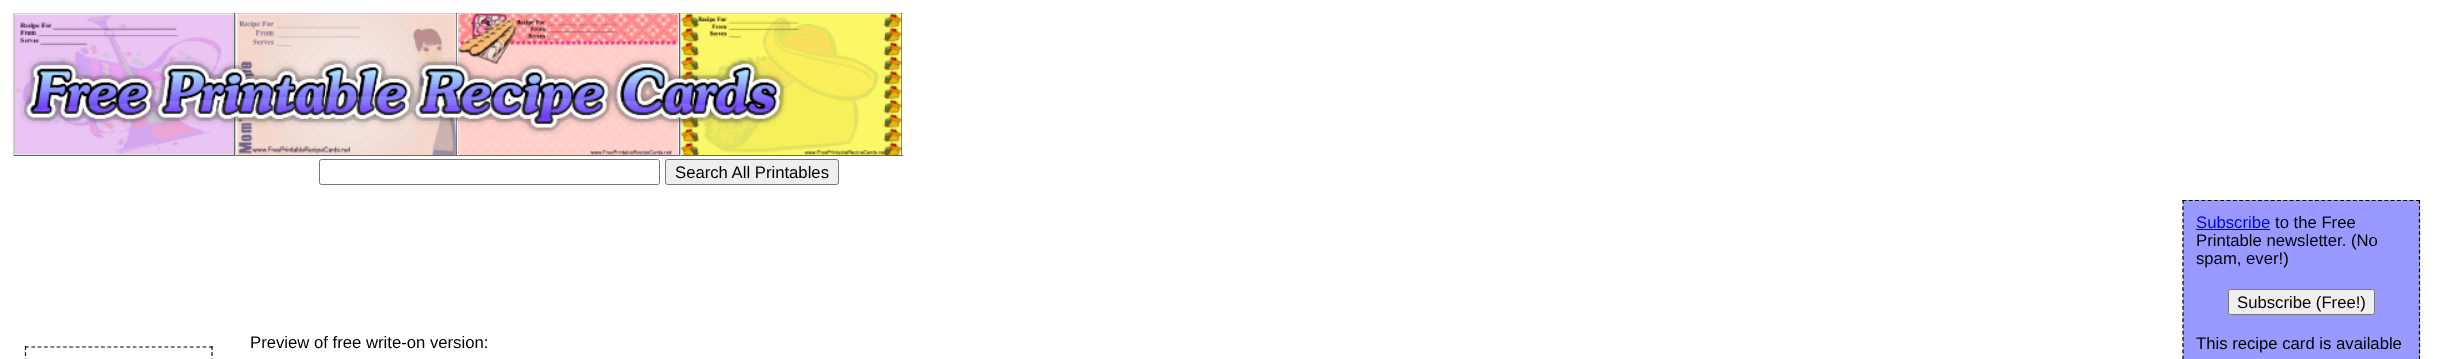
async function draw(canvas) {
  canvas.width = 2445
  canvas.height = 359
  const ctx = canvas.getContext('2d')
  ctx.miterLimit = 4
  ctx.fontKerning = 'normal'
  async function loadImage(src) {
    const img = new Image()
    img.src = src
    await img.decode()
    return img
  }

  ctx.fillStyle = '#fff'
  ctx.fillRect(0, 0, 2445, 359)
  ctx.fillStyle = '#ccc'
  ctx.fillRect(13, 13, 890, 1)
  ctx.fillStyle = '#666'
  ctx.fillRect(234, 13, 1, 143)
  ctx.fillRect(13, 155, 222, 1)
  ctx.fillStyle = '#ccc'
  ctx.fillRect(13, 13, 1, 143)
  ctx.drawImage(await loadImage('image0.png'), 13, 13, 221, 142)
  ctx.fillStyle = '#666'
  ctx.fillRect(456, 13, 1, 143)
  ctx.fillRect(235, 155, 223, 1)
  ctx.fillStyle = '#ccc'
  ctx.fillRect(235, 13, 1, 143)
  ctx.drawImage(await loadImage('image1.png'), 236, 13, 221, 142)
  ctx.fillStyle = '#666'
  ctx.fillRect(679, 13, 1, 143)
  ctx.fillRect(458, 155, 222, 1)
  ctx.fillStyle = '#ccc'
  ctx.fillRect(458, 13, 1, 143)
  ctx.drawImage(await loadImage('image2.png'), 458, 13, 221, 142)
  ctx.fillStyle = '#666'
  ctx.fillRect(901, 13, 1, 143)
  ctx.fillRect(680, 155, 223, 1)
  ctx.fillStyle = '#ccc'
  ctx.fillRect(680, 13, 1, 143)
  ctx.drawImage(await loadImage('image3.png'), 681, 13, 221, 142)
  ctx.drawImage(await loadImage('image4.png'), 19, 57, 768, 78)
  ctx.beginPath()
  ctx.roundRect(319.5, 159.5, 340, 25, 2)
  ctx.strokeStyle = '#767676'
  ctx.stroke()
  ctx.fillStyle = '#efefef'
  ctx.beginPath()
  ctx.roundRect(665.5, 159.5, 173, 25, 2)
  ctx.fill()
  ctx.stroke()
  ctx.font = '16.7px Liberation Sans'
  ctx.fillStyle = '#000'
  ctx.fillText('Search All Printables', 675, 178)
  ctx.fillText('Preview of free write-on version:', 250, 348)
  ctx.fillStyle = '#99f'
  ctx.fillRect(2183, 200, 237, 159)
  ctx.beginPath()
  ctx.moveTo(2182.5, 200.5)
  ctx.lineTo(2420, 200.5)
  ctx.strokeStyle = '#000'
  ctx.lineWidth = 1.2
  ctx.setLineDash([3.75, 2.56])
  ctx.stroke()
  ctx.beginPath()
  ctx.moveTo(2419.5, 200)
  ctx.lineTo(2419.5, 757.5)
  ctx.setLineDash([3.75, 2.48])
  ctx.stroke()
  ctx.beginPath()
  ctx.moveTo(2183, 200)
  ctx.lineTo(2183, 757.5)
  ctx.stroke()
  ctx.fillStyle = '#00e'
  ctx.fillText('Subscribe', 2196, 228)
  ctx.fillRect(2196, 229, 74, 1)
  ctx.fillStyle = '#000'
  ctx.fillText('to the Free', 2275, 228)
  ctx.fillText('Printable newsletter. (No', 2196, 246)
  ctx.fillText('spam, ever!)', 2196, 264)
  ctx.fillStyle = '#efefef'
  ctx.beginPath()
  ctx.roundRect(2228.5, 289.5, 146, 25, 2)
  ctx.fill()
  ctx.strokeStyle = '#767676'
  ctx.lineWidth = 1
  ctx.setLineDash([])
  ctx.stroke()
  ctx.fillStyle = '#000'
  ctx.fillText('Subscribe (Free!)', 2237, 308)
  ctx.fillText('This recipe card is available', 2196, 349)
  ctx.beginPath()
  ctx.moveTo(25, 347)
  ctx.lineTo(212.5, 347)
  ctx.strokeStyle = '#000'
  ctx.lineWidth = 1.2
  ctx.setLineDash([3.75, 2.59])
  ctx.stroke()
  ctx.beginPath()
  ctx.moveTo(212, 346)
  ctx.lineTo(212, 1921)
  ctx.setLineDash([3.75, 2.51])
  ctx.stroke()
  ctx.beginPath()
  ctx.moveTo(25.5, 346)
  ctx.lineTo(25.5, 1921)
  ctx.stroke()
}

draw(document.querySelector('canvas'))
